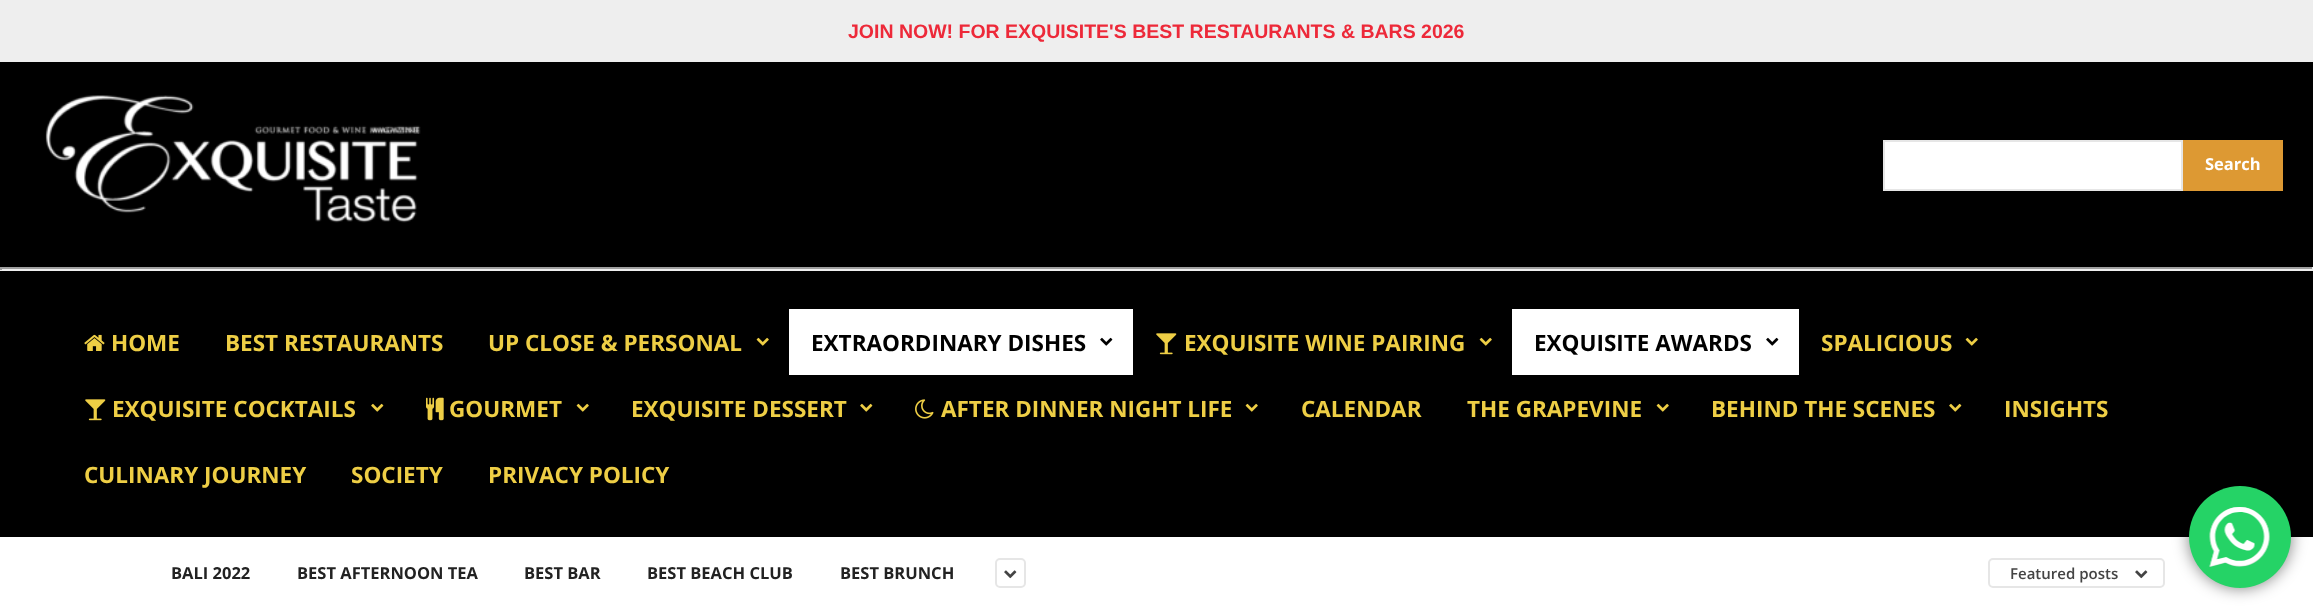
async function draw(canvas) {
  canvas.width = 2313
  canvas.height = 610
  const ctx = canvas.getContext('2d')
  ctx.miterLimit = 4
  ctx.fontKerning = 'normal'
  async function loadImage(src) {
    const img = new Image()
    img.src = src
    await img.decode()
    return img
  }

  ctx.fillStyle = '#fff'
  ctx.fillRect(0, 0, 2313, 610)
  ctx.fillStyle = '#eee'
  ctx.fillRect(0, 0, 2313, 62)
  ctx.font = 'bold 19.5px Liberation Sans'
  ctx.fillStyle = '#ed2939'
  ctx.fillText('JOIN NOW! FOR EXQUISITE\'S BEST RESTAURANTS & BARS 2026', 848, 38)
  ctx.fillStyle = '#000'
  ctx.fillRect(0, 62, 2313, 475)
  ctx.drawImage(await loadImage('image0.png'), 45, 95, 376, 128)
  ctx.fillStyle = '#fff'
  ctx.beginPath()
  ctx.rect(1884, 141, 298, 49)
  ctx.fill()
  ctx.strokeStyle = '#e6e6e6'
  ctx.lineWidth = 2
  ctx.stroke()
  ctx.fillStyle = '#d93'
  ctx.fillRect(2183, 140, 100, 51)
  ctx.font = 'bold 16.5px Open Sans'
  ctx.fillStyle = '#fff'
  ctx.fillText('Search', 2205, 170)
  ctx.fillStyle = '#9f9f9f'
  ctx.fillRect(0, 267, 2313, 2)
  ctx.fillStyle = '#eee'
  ctx.fillRect(2312, 267, 1, 3)
  ctx.fillRect(0, 269, 2313, 2)
  ctx.fillStyle = '#9f9f9f'
  ctx.fillRect(0, 267, 2, 3)
  ctx.drawImage(await loadImage('image1.png'), 84, 334, 21, 17)
  ctx.font = 'bold 22.5px Open Sans'
  ctx.fillStyle = '#eece45'
  ctx.fillText('HOME', 111, 351)
  ctx.fillText('BEST RESTAURANTS', 225, 351)
  ctx.fillText('UP CLOSE & PERSONAL', 488, 351)
  ctx.drawImage(await loadImage('image2.png'), 756, 337, 13, 9)
  ctx.fillStyle = '#fff'
  ctx.fillRect(789, 309, 344, 66)
  ctx.fillStyle = '#000'
  ctx.fillText('EXTRAORDINARY DISHES', 811, 351)
  ctx.drawImage(await loadImage('image3.png'), 1100, 337, 13, 9)
  ctx.drawImage(await loadImage('image4.png'), 1156, 333, 21, 22)
  ctx.fillStyle = '#eece45'
  ctx.fillText('EXQUISITE WINE PAIRING', 1184, 351)
  ctx.drawImage(await loadImage('image2.png'), 1479, 337, 13, 9)
  ctx.fillStyle = '#fff'
  ctx.fillRect(1512, 309, 287, 66)
  ctx.fillStyle = '#000'
  ctx.fillText('EXQUISITE AWARDS', 1534, 351)
  ctx.drawImage(await loadImage('image3.png'), 1766, 337, 13, 9)
  ctx.fillStyle = '#eece45'
  ctx.fillText('SPALICIOUS', 1821, 351)
  ctx.drawImage(await loadImage('image2.png'), 1965, 337, 13, 9)
  ctx.drawImage(await loadImage('image4.png'), 85, 399, 21, 22)
  ctx.fillText('EXQUISITE COCKTAILS', 112, 417)
  ctx.drawImage(await loadImage('image5.png'), 371, 403, 13, 9)
  ctx.drawImage(await loadImage('image6.png'), 426, 397, 18, 24)
  ctx.fillText('GOURMET', 449, 417)
  ctx.drawImage(await loadImage('image2.png'), 576, 403, 13, 9)
  ctx.fillText('EXQUISITE DESSERT', 631, 417)
  ctx.drawImage(await loadImage('image5.png'), 860, 403, 13, 9)
  ctx.drawImage(await loadImage('image7.png'), 915, 399, 19, 20)
  ctx.fillText('AFTER DINNER NIGHT LIFE', 941, 417)
  ctx.drawImage(await loadImage('image2.png'), 1245, 403, 13, 9)
  ctx.fillText('CALENDAR', 1301, 417)
  ctx.fillText('THE GRAPEVINE', 1467, 417)
  ctx.drawImage(await loadImage('image2.png'), 1656, 403, 13, 9)
  ctx.fillText('BEHIND THE SCENES', 1711, 417)
  ctx.drawImage(await loadImage('image5.png'), 1949, 403, 13, 9)
  ctx.fillText('INSIGHTS', 2004, 417)
  ctx.fillText('CULINARY JOURNEY', 84, 483)
  ctx.fillText('SOCIETY', 351, 483)
  ctx.fillText('PRIVACY POLICY', 488, 483)
  ctx.font = 'bold 16.5px Open Sans'
  ctx.fillStyle = '#222'
  ctx.fillText('BALI 2022', 171, 579)
  ctx.fillText('BEST AFTERNOON TEA', 297, 579)
  ctx.fillText('BEST BAR', 524, 579)
  ctx.fillText('BEST BEACH CLUB', 647, 579)
  ctx.fillText('BEST BRUNCH', 840, 579)
  ctx.beginPath()
  ctx.roundRect(996, 559, 29, 28, 4)
  ctx.stroke()
  ctx.drawImage(await loadImage('image8.png'), 1004, 570, 13, 9)
  ctx.beginPath()
  ctx.roundRect(1989, 559, 175, 28, 4)
  ctx.stroke()
  ctx.font = '600 15px Open Sans'
  ctx.fillStyle = '#444'
  ctx.fillText('Featured posts', 2010, 579)
  ctx.drawImage(await loadImage('image8.png'), 2135, 570, 13, 9)
  ctx.fillStyle = '#00000080'
  ctx.filter = 'blur(8px)'
  ctx.beginPath()
  ctx.roundRect(2189, 486, 102, 102, 51)
  ctx.fill()
  ctx.filter = 'none'
  ctx.fillStyle = '#25d366'
  ctx.beginPath()
  ctx.arc(2240, 537, 51, 0, 2 * Math.PI)
  ctx.fill()
  ctx.drawImage(await loadImage('image9.png'), 2209, 507, 61, 60)
}

draw(document.querySelector('canvas'))
